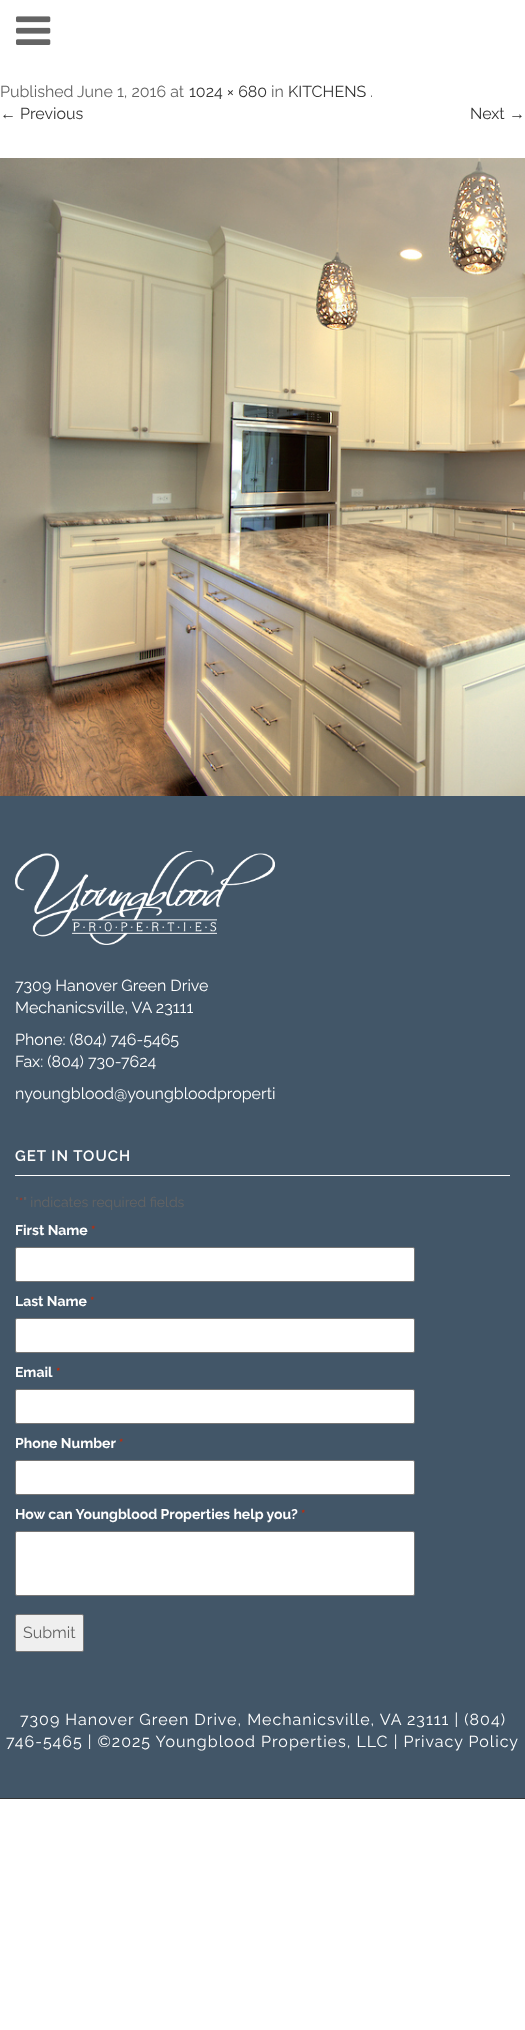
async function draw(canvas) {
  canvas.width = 525
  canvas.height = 2030
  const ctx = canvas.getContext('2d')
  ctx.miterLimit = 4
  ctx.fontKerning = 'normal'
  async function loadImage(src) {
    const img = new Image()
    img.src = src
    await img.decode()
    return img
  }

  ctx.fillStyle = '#fff'
  ctx.fillRect(0, 0, 525, 2030)
  ctx.drawImage(await loadImage('image0.png'), 16, 16, 35, 29)
  ctx.font = '16px Raleway'
  ctx.fillStyle = '#646464'
  ctx.fillText('Published', 0, 97)
  ctx.fillText('June 1, 2016 at', 77, 97)
  ctx.fillStyle = '#333'
  ctx.fillText('1024 × 680', 189, 97)
  ctx.fillStyle = '#646464'
  ctx.fillText('in', 271, 97)
  ctx.fillStyle = '#333'
  ctx.fillText('KITCHENS', 288, 97)
  ctx.fillStyle = '#646464'
  ctx.fillText('.', 370, 97)
  ctx.font = '16px Liberation Sans'
  ctx.fillStyle = '#333'
  ctx.fillText('←', 0, 119)
  ctx.font = '16px Raleway'
  ctx.fillText('Previous', 20, 119)
  ctx.fillText('Next', 470, 119)
  ctx.font = '16px Liberation Sans'
  ctx.fillText('→', 509, 119)
  ctx.drawImage(await loadImage('image1.png'), 0, 158, 525, 638)
  ctx.fillStyle = '#425668'
  ctx.fillRect(0, 796, 525, 1002)
  ctx.drawImage(await loadImage('image2.png'), 15, 851, 260, 94)
  ctx.font = '16px Raleway'
  ctx.fillStyle = '#fff'
  ctx.fillText('7309 Hanover Green Drive', 15, 991)
  ctx.fillText('Mechanicsville, VA 23111', 15, 1013)
  ctx.fillText('Phone: (804) 746-5465', 15, 1045)
  ctx.fillText('Fax: (804) 730-7624', 15, 1067)
  ctx.fillText('nyoungblood@youngbloodproperti', 15, 1099)
  ctx.letterSpacing = '1px'
  ctx.font = '600 15px Raleway'
  ctx.fillText('GET IN TOUCH', 15, 1161)
  ctx.fillRect(15, 1175, 495, 1)
  ctx.letterSpacing = '0px'
  ctx.font = '14px Raleway'
  ctx.fillStyle = '#646464'
  ctx.fillText('"', 15, 1207)
  ctx.font = '13px Raleway'
  ctx.fillStyle = '#c02b0a'
  ctx.fillText('*', 19, 1207)
  ctx.font = '14px Raleway'
  ctx.fillStyle = '#646464'
  ctx.fillText('" indicates required fields', 23, 1207)
  ctx.font = 'bold 14px Raleway'
  ctx.fillStyle = '#fff'
  ctx.fillText('First Name', 15, 1235)
  ctx.font = 'bold 13px Raleway'
  ctx.fillStyle = '#c02b0a'
  ctx.fillText('*', 91, 1235)
  ctx.fillStyle = '#fff'
  ctx.beginPath()
  ctx.roundRect(15.5, 1247.5, 399, 34, 1.5)
  ctx.fill()
  ctx.strokeStyle = '#767676'
  ctx.stroke()
  ctx.font = 'bold 14px Raleway'
  ctx.fillText('Last Name', 15, 1306)
  ctx.font = 'bold 13px Raleway'
  ctx.fillStyle = '#c02b0a'
  ctx.fillText('*', 90, 1306)
  ctx.fillStyle = '#fff'
  ctx.beginPath()
  ctx.roundRect(15.5, 1318.5, 399, 34, 1.5)
  ctx.fill()
  ctx.stroke()
  ctx.font = 'bold 14px Raleway'
  ctx.fillText('Email', 15, 1377)
  ctx.font = 'bold 13px Raleway'
  ctx.fillStyle = '#c02b0a'
  ctx.fillText('*', 56, 1377)
  ctx.fillStyle = '#fff'
  ctx.beginPath()
  ctx.roundRect(15.5, 1389.5, 399, 34, 1.5)
  ctx.fill()
  ctx.stroke()
  ctx.font = 'bold 14px Raleway'
  ctx.fillText('Phone Number', 15, 1448)
  ctx.font = 'bold 13px Raleway'
  ctx.fillStyle = '#c02b0a'
  ctx.fillText('*', 119, 1448)
  ctx.fillStyle = '#fff'
  ctx.beginPath()
  ctx.roundRect(15.5, 1460.5, 399, 34, 1.5)
  ctx.fill()
  ctx.stroke()
  ctx.font = 'bold 14px Raleway'
  ctx.fillText('How can Youngblood Properties help you?', 15, 1519)
  ctx.font = 'bold 13px Raleway'
  ctx.fillStyle = '#c02b0a'
  ctx.fillText('*', 301, 1519)
  ctx.fillStyle = '#fff'
  ctx.beginPath()
  ctx.roundRect(15.5, 1531.5, 399, 64, 1.5)
  ctx.fill()
  ctx.stroke()
  ctx.fillStyle = '#efefef'
  ctx.beginPath()
  ctx.roundRect(15.5, 1614.5, 68, 37, 1.5)
  ctx.fill()
  ctx.stroke()
  ctx.font = '16px Raleway'
  ctx.fillStyle = '#646464'
  ctx.fillText('Submit', 23, 1638)
  ctx.letterSpacing = '1px'
  ctx.fillStyle = '#fff'
  ctx.fillText('7309 Hanover Green Drive, Mechanicsville, VA 23111 | (804)', 20, 1725)
  ctx.fillText('746-5465 | ©2025 Youngblood Properties, LLC | Privacy Policy', 6, 1747)
  ctx.fillStyle = '#333'
  ctx.fillRect(0, 1798, 525, 1)
}

draw(document.querySelector('canvas'))
